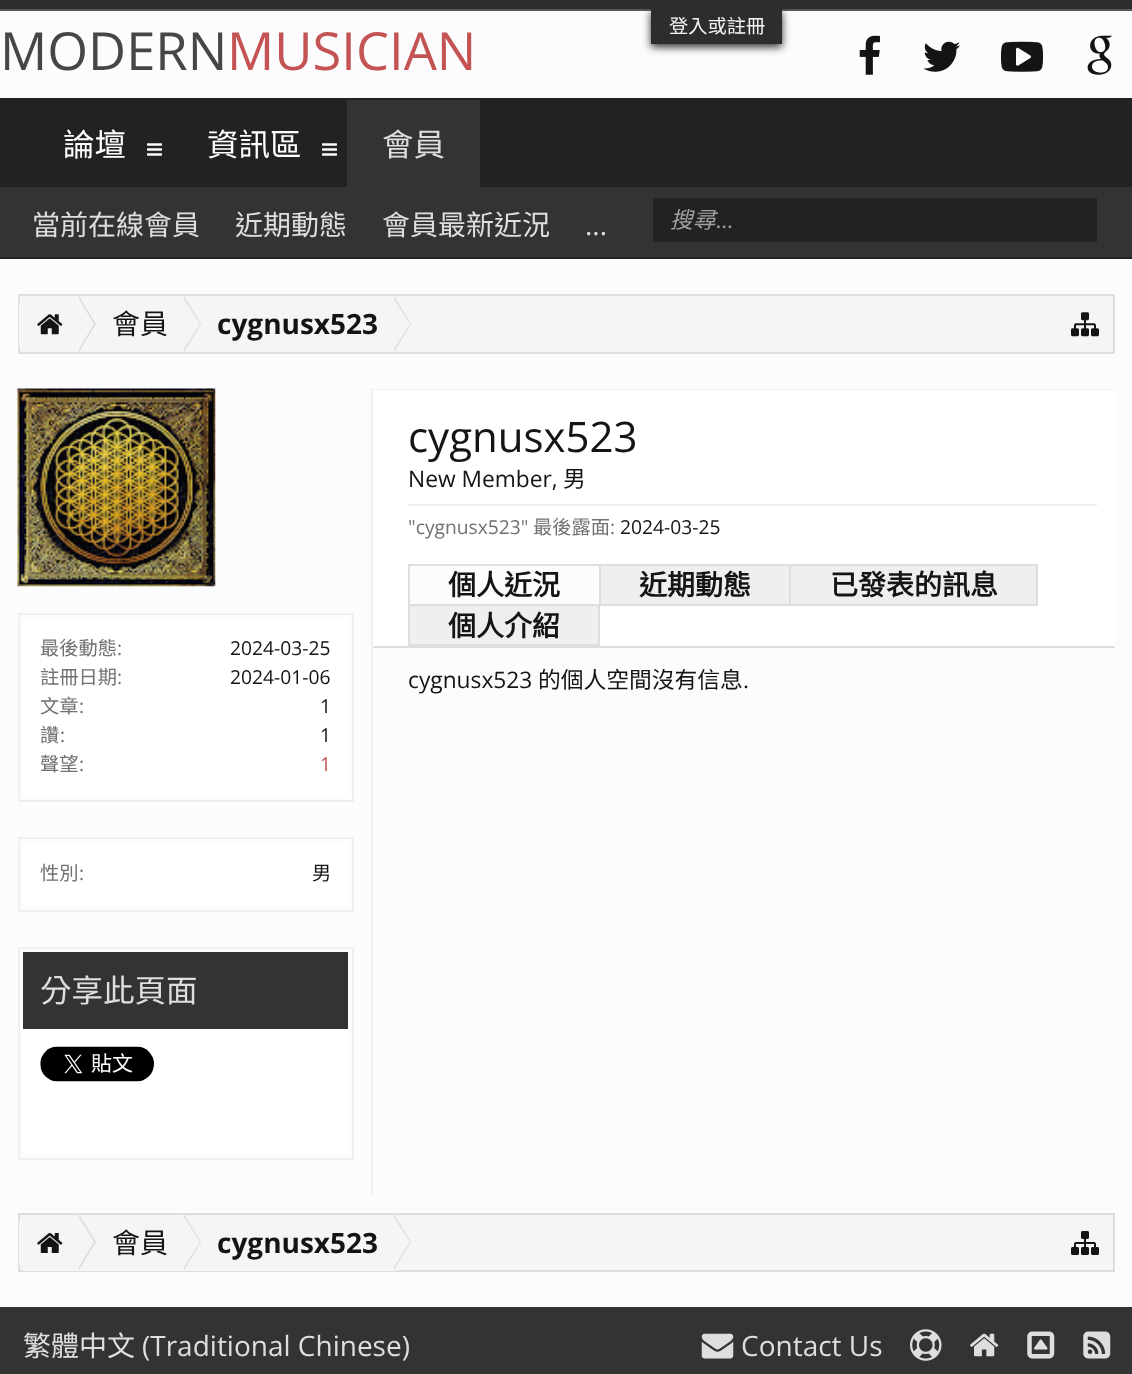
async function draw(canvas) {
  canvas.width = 1132
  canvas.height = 1374
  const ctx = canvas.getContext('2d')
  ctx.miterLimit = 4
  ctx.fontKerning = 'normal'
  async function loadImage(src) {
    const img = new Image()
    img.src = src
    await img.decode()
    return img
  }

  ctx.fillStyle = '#222'
  ctx.fillRect(0, 0, 1132, 1374)
  ctx.fillStyle = '#2d2d2d'
  ctx.fillRect(0, 0, 1132, 9)
  ctx.fillStyle = '#585858'
  ctx.fillRect(0, 9, 1132, 2)
  ctx.fillStyle = '#fcfcff'
  ctx.fillRect(0, 11, 1132, 87)
  ctx.fillStyle = '#2d2d2d'
  ctx.filter = 'blur(4.5px)'
  ctx.beginPath()
  ctx.rect(651, 12, 131, 35)
  ctx.fill()
  ctx.filter = 'none'
  ctx.fillRect(651, 9, 131, 35)
  ctx.font = '19.25px Noto Sans CJK TC'
  ctx.fillStyle = '#f5f5f5'
  ctx.fillText('登入或註冊', 669, 33)
  ctx.font = '52.5px Open Sans'
  ctx.fillStyle = '#464646'
  ctx.fillText('MODERN', 0, 70)
  ctx.fillStyle = '#c45454'
  ctx.fillText('MUSICIAN', 227, 70)
  ctx.drawImage(await loadImage('image0.png'), 859, 35, 21, 40)
  ctx.drawImage(await loadImage('image1.png'), 923, 41, 37, 31)
  ctx.drawImage(await loadImage('image2.png'), 1001, 41, 42, 31)
  ctx.drawImage(await loadImage('image3.png'), 1087, 35, 26, 40)
  ctx.fillStyle = '#333'
  ctx.fillRect(347, 100, 133, 87)
  ctx.font = '31.5px Noto Sans CJK TC'
  ctx.fillStyle = '#dedede'
  ctx.fillText('會員', 382, 156)
  ctx.fillStyle = '#333'
  ctx.fillRect(0, 187, 1132, 70)
  ctx.font = '28px Noto Sans CJK TC'
  ctx.fillStyle = '#dedede'
  ctx.fillText('當前在線會員', 32, 235)
  ctx.fillText('近期動態', 235, 235)
  ctx.fillText('會員最新近況', 382, 235)
  ctx.font = '28px Open Sans'
  ctx.fillText('...', 585, 235)
  ctx.font = '31.5px Noto Sans CJK TC'
  ctx.fillStyle = '#fff'
  ctx.fillText('論壇', 63, 156)
  ctx.drawImage(await loadImage('image4.png'), 147, 143, 15, 13)
  ctx.fillText('資訊區', 207, 156)
  ctx.drawImage(await loadImage('image4.png'), 322, 143, 15, 13)
  ctx.fillStyle = '#222'
  ctx.fillRect(653, 198, 444, 44)
  ctx.font = 'italic 22.75px Noto Sans CJK TC'
  ctx.fillStyle = '#a0a0a0'
  ctx.fillText('搜尋', 670, 228)
  ctx.font = 'italic 22.75px Carlito'
  ctx.fillText('...', 716, 228)
  ctx.fillStyle = '#fcfcff'
  ctx.fillRect(0, 259, 1132, 1048)
  ctx.fillStyle = '#f5f5f5'
  ctx.beginPath()
  ctx.rect(19, 295, 1095, 58)
  ctx.fill()
  ctx.strokeStyle = '#dedede'
  ctx.lineWidth = 2
  ctx.stroke()
  ctx.save()
  ctx.beginPath()
  ctx.rect(19, 296, 1094, 56)
  ctx.clip()
  ctx.beginPath()
  ctx.roundRect(19, 296, 62, 58, [9, 0, 0, 9])
  ctx.fill()
  ctx.restore()
  ctx.drawImage(await loadImage('image5.png'), 37, 314, 26, 21)
  ctx.fillStyle = '#dedede'
  ctx.beginPath()
  ctx.moveTo(79, 352)
  ctx.lineTo(79, 296)
  ctx.lineTo(96, 324)
  ctx.closePath()
  ctx.fill()
  ctx.fillStyle = '#f5f5f5'
  ctx.beginPath()
  ctx.moveTo(77, 352)
  ctx.lineTo(77, 296)
  ctx.lineTo(94, 324)
  ctx.closePath()
  ctx.fill()
  ctx.font = '28px Noto Sans CJK TC'
  ctx.fillStyle = '#141414'
  ctx.fillText('會員', 112, 334)
  ctx.fillStyle = '#dedede'
  ctx.beginPath()
  ctx.moveTo(184, 352)
  ctx.lineTo(184, 296)
  ctx.lineTo(201, 324)
  ctx.closePath()
  ctx.fill()
  ctx.fillStyle = '#f5f5f5'
  ctx.beginPath()
  ctx.moveTo(182, 352)
  ctx.lineTo(182, 296)
  ctx.lineTo(200, 324)
  ctx.closePath()
  ctx.fill()
  ctx.font = 'bold 28px Open Sans'
  ctx.fillStyle = '#141414'
  ctx.fillText('cygnusx523', 217, 334)
  ctx.fillStyle = '#dedede'
  ctx.beginPath()
  ctx.moveTo(394, 352)
  ctx.lineTo(394, 296)
  ctx.lineTo(411, 324)
  ctx.closePath()
  ctx.fill()
  ctx.fillStyle = '#f5f5f5'
  ctx.beginPath()
  ctx.moveTo(392, 352)
  ctx.lineTo(392, 296)
  ctx.lineTo(410, 324)
  ctx.closePath()
  ctx.fill()
  ctx.drawImage(await loadImage('image6.png'), 1071, 312, 28, 25)
  ctx.fillStyle = '#efefef'
  ctx.fillRect(373, 389, 742, 1)
  ctx.fillStyle = '#fff'
  ctx.fillRect(373, 390, 742, 256)
  ctx.font = '42px Open Sans'
  ctx.fillStyle = '#141414'
  ctx.fillText('cygnusx523', 408, 452)
  ctx.font = '22.75px Open Sans'
  ctx.fillText('New Member,', 408, 487)
  ctx.font = '22.75px Noto Sans CJK TC'
  ctx.fillText('男', 563, 487)
  ctx.fillStyle = '#efefef'
  ctx.fillRect(408, 504, 689, 2)
  ctx.font = '19.25px Open Sans'
  ctx.fillStyle = '#717171'
  ctx.fillText('"cygnusx523"', 408, 534)
  ctx.font = '19.25px Noto Sans CJK TC'
  ctx.fillText('最後露面', 533, 534)
  ctx.font = '19.25px Open Sans'
  ctx.fillText(':', 610, 534)
  ctx.fillStyle = '#141414'
  ctx.fillText('2024-03-25', 620, 534)
  ctx.fillStyle = '#dedede'
  ctx.fillRect(373, 646, 742, 2)
  ctx.fillStyle = '#fcfcff'
  ctx.fillRect(410, 566, 189, 38)
  ctx.fillStyle = '#dedede'
  ctx.fillRect(408, 564, 192, 2)
  ctx.fillRect(408, 564, 2, 42)
  ctx.font = 'bold 28px Noto Sans CJK TC'
  ctx.fillStyle = '#141414'
  ctx.fillText('個人近況', 448, 595)
  ctx.fillStyle = '#efefef'
  ctx.beginPath()
  ctx.rect(600, 565, 190, 40)
  ctx.fill()
  ctx.stroke()
  ctx.fillStyle = '#141414'
  ctx.fillText('近期動態', 639, 595)
  ctx.fillStyle = '#efefef'
  ctx.beginPath()
  ctx.rect(790, 565, 247, 40)
  ctx.fill()
  ctx.stroke()
  ctx.fillStyle = '#141414'
  ctx.fillText('已發表的訊息', 830, 595)
  ctx.fillStyle = '#efefef'
  ctx.beginPath()
  ctx.rect(409, 605, 190, 40)
  ctx.fill()
  ctx.stroke()
  ctx.fillStyle = '#141414'
  ctx.fillText('個人介紹', 448, 636)
  ctx.font = '22.75px Open Sans'
  ctx.fillText('cygnusx523', 408, 688)
  ctx.font = '22.75px Noto Sans CJK TC'
  ctx.fillText('的個人空間沒有信息', 538, 688)
  ctx.font = '22.75px Open Sans'
  ctx.fillText('.', 743, 688)
  ctx.fillStyle = '#efefef'
  ctx.fillRect(371, 389, 2, 806)
  ctx.drawImage(await loadImage('image7.png'), 17, 388, 199, 199)
  ctx.strokeStyle = '#efefef'
  ctx.strokeRect(19, 614, 334, 187)
  ctx.fillStyle = '#fff'
  ctx.fillRect(23, 618, 325, 178)
  ctx.font = '19.25px Noto Sans CJK TC'
  ctx.fillStyle = '#717171'
  ctx.fillText('最後動態', 40, 655)
  ctx.font = '19.25px Open Sans'
  ctx.fillText(':', 117, 655)
  ctx.fillStyle = '#141414'
  ctx.fillText('2024-03-25', 230, 655)
  ctx.font = '19.25px Noto Sans CJK TC'
  ctx.fillStyle = '#717171'
  ctx.fillText('註冊日期', 40, 684)
  ctx.font = '19.25px Open Sans'
  ctx.fillText(':', 117, 684)
  ctx.fillStyle = '#141414'
  ctx.fillText('2024-01-06', 230, 684)
  ctx.font = '19.25px Noto Sans CJK TC'
  ctx.fillStyle = '#717171'
  ctx.fillText('文章', 40, 713)
  ctx.font = '19.25px Open Sans'
  ctx.fillText(':', 79, 713)
  ctx.fillStyle = '#141414'
  ctx.fillText('1', 320, 713)
  ctx.font = '19.25px Noto Sans CJK TC'
  ctx.fillStyle = '#717171'
  ctx.fillText('讚', 40, 742)
  ctx.font = '19.25px Open Sans'
  ctx.fillText(':', 60, 742)
  ctx.fillStyle = '#141414'
  ctx.fillText('1', 320, 742)
  ctx.font = '19.25px Noto Sans CJK TC'
  ctx.fillStyle = '#717171'
  ctx.fillText('聲望', 40, 771)
  ctx.font = '19.25px Open Sans'
  ctx.fillText(':', 79, 771)
  ctx.fillStyle = '#c45454'
  ctx.fillText('1', 320, 771)
  ctx.strokeRect(19, 838, 334, 73)
  ctx.fillStyle = '#fff'
  ctx.fillRect(23, 842, 325, 65)
  ctx.font = '19.25px Noto Sans CJK TC'
  ctx.fillStyle = '#717171'
  ctx.fillText('性別', 40, 880)
  ctx.font = '19.25px Open Sans'
  ctx.fillText(':', 79, 880)
  ctx.font = '19.25px Noto Sans CJK TC'
  ctx.fillStyle = '#141414'
  ctx.fillText('男', 312, 880)
  ctx.strokeRect(19, 948, 334, 211)
  ctx.fillStyle = '#fff'
  ctx.fillRect(23, 1029, 325, 126)
  ctx.fillStyle = '#333'
  ctx.fillRect(23, 952, 325, 77)
  ctx.font = '31.5px Noto Sans CJK TC'
  ctx.fillStyle = '#dedede'
  ctx.fillText('分享此頁面', 40, 1002)
  ctx.drawImage(await loadImage('image8.png'), 40, 1046, 114, 36)
  ctx.fillStyle = '#f5f5f5'
  ctx.beginPath()
  ctx.rect(19, 1214, 1095, 57)
  ctx.fill()
  ctx.strokeStyle = '#dedede'
  ctx.stroke()
  ctx.save()
  ctx.beginPath()
  ctx.rect(19, 1215, 1094, 56)
  ctx.clip()
  ctx.beginPath()
  ctx.roundRect(19, 1215, 62, 57, [9, 0, 0, 9])
  ctx.fill()
  ctx.restore()
  ctx.drawImage(await loadImage('image9.png'), 37, 1233, 26, 20)
  ctx.fillStyle = '#dedede'
  ctx.beginPath()
  ctx.moveTo(79, 1270)
  ctx.lineTo(79, 1214)
  ctx.lineTo(96, 1242)
  ctx.closePath()
  ctx.fill()
  ctx.fillStyle = '#f5f5f5'
  ctx.beginPath()
  ctx.moveTo(77, 1270)
  ctx.lineTo(77, 1214)
  ctx.lineTo(94, 1242)
  ctx.closePath()
  ctx.fill()
  ctx.fillRect(81, 1270, 315, 1)
  ctx.font = '28px Noto Sans CJK TC'
  ctx.fillStyle = '#141414'
  ctx.fillText('會員', 112, 1253)
  ctx.fillStyle = '#dedede'
  ctx.beginPath()
  ctx.moveTo(184, 1270)
  ctx.lineTo(184, 1214)
  ctx.lineTo(201, 1242)
  ctx.closePath()
  ctx.fill()
  ctx.fillStyle = '#f5f5f5'
  ctx.beginPath()
  ctx.moveTo(182, 1270)
  ctx.lineTo(182, 1214)
  ctx.lineTo(200, 1242)
  ctx.closePath()
  ctx.fill()
  ctx.font = 'bold 28px Open Sans'
  ctx.fillStyle = '#141414'
  ctx.fillText('cygnusx523', 217, 1253)
  ctx.fillStyle = '#dedede'
  ctx.beginPath()
  ctx.moveTo(394, 1270)
  ctx.lineTo(394, 1214)
  ctx.lineTo(411, 1242)
  ctx.closePath()
  ctx.fill()
  ctx.fillStyle = '#f5f5f5'
  ctx.beginPath()
  ctx.moveTo(392, 1270)
  ctx.lineTo(392, 1214)
  ctx.lineTo(410, 1242)
  ctx.closePath()
  ctx.fill()
  ctx.drawImage(await loadImage('image10.png'), 1071, 1231, 28, 24)
  ctx.fillStyle = '#333'
  ctx.fillRect(0, 1307, 1132, 67)
  ctx.font = '28px Noto Sans CJK TC'
  ctx.fillStyle = '#dedede'
  ctx.fillText('繁體中文', 23, 1356)
  ctx.font = '28px Open Sans'
  ctx.fillText('(Traditional Chinese)', 142, 1356)
  ctx.drawImage(await loadImage('image11.png'), 701, 1333, 33, 26)
  ctx.fillText('Contact Us', 741, 1356)
  ctx.drawImage(await loadImage('image12.png'), 910, 1329, 32, 32)
  ctx.drawImage(await loadImage('image13.png'), 970, 1333, 29, 24)
  ctx.drawImage(await loadImage('image14.png'), 1027, 1331, 28, 28)
  ctx.drawImage(await loadImage('image15.png'), 1083, 1331, 28, 28)
}

draw(document.querySelector('canvas'))
